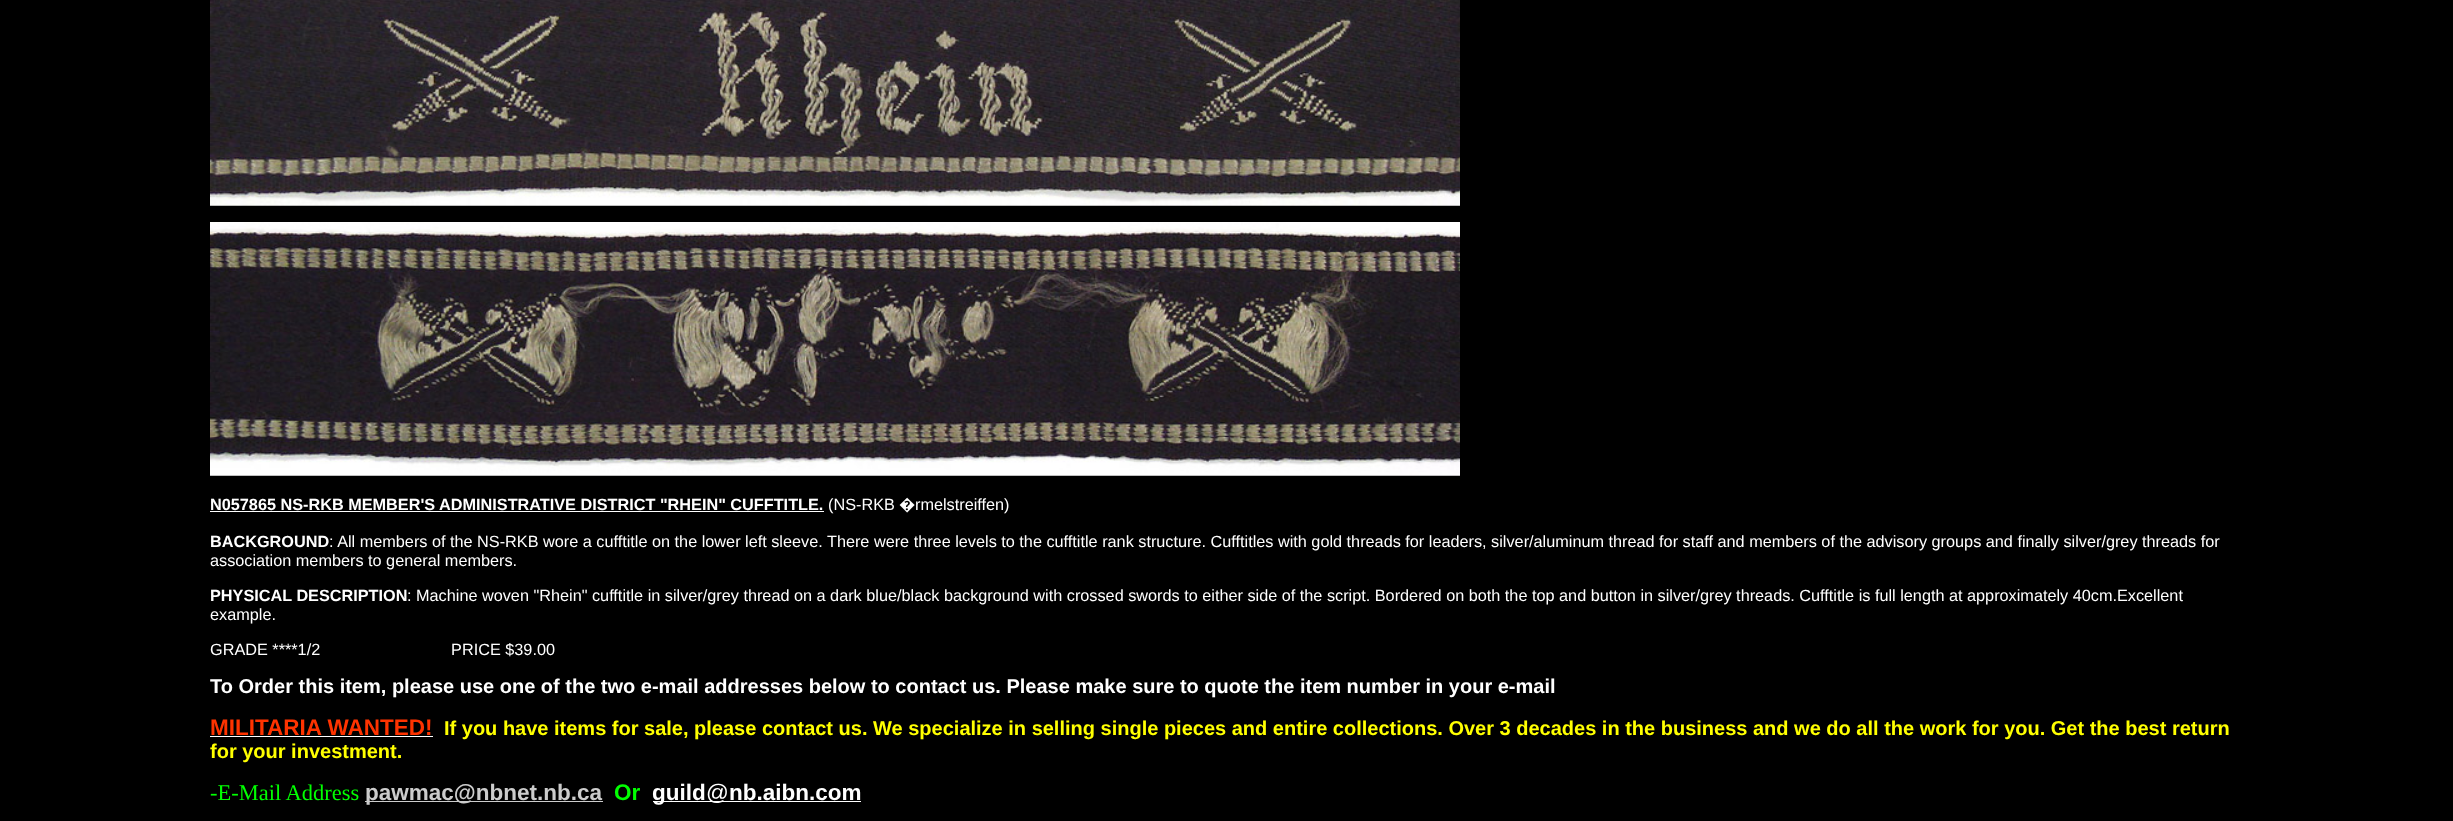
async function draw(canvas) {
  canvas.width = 2453
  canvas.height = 821
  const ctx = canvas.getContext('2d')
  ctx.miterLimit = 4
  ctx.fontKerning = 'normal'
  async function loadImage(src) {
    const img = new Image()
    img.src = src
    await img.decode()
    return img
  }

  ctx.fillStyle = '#000'
  ctx.fillRect(0, 0, 2453, 821)
  ctx.drawImage(await loadImage('image0.png'), 210, 0, 1250, 206)
  ctx.drawImage(await loadImage('image1.png'), 210, 222, 1250, 254)
  ctx.font = 'bold 16.25px Liberation Sans'
  ctx.fillStyle = '#fff'
  ctx.fillText('N057865 NS-RKB MEMBER\'S ADMINISTRATIVE DISTRICT "RHEIN" CUFFTITLE.', 210, 510)
  ctx.fillRect(210, 511, 614, 1)
  ctx.font = '16.25px Liberation Sans'
  ctx.fillText('(NS-RKB', 828, 510)
  ctx.font = '16.25px Noto Sans'
  ctx.fillText('�', 899, 510)
  ctx.font = '16.25px Liberation Sans'
  ctx.fillText('rmelstreiffen)', 915, 510)
  ctx.font = 'bold 16.25px Liberation Sans'
  ctx.fillText('BACKGROUND', 210, 547)
  ctx.font = '16.25px Liberation Sans'
  ctx.fillText(': All members of the NS-RKB wore a cufftitle on the lower left sleeve. There were three levels to the cufftitle rank structure. Cufftitles with gold threads for leaders, silver/aluminum thread for staff and members of the advisory groups and finally silver/grey threads for', 329, 547)
  ctx.fillText('association members to general members.', 210, 566)
  ctx.font = 'bold 16.25px Liberation Sans'
  ctx.fillText('PHYSICAL DESCRIPTION', 210, 601)
  ctx.font = '16.25px Liberation Sans'
  ctx.fillText(': Machine woven "Rhein" cufftitle in silver/grey thread on a dark blue/black background with crossed swords to either side of the script. Bordered on both the top and button in silver/grey threads. Cufftitle is full length at approximately 40cm.Excellent', 407, 601)
  ctx.fillText('example.', 210, 620)
  ctx.fillText('GRADE ****1/2                             PRICE $39.00', 210, 655)
  ctx.font = 'bold 20px Liberation Sans'
  ctx.fillText('To Order this item, please use one of the two e-mail addresses below to contact us. Please make sure to quote the item number in your e-mail', 210, 693)
  ctx.font = 'bold 22.5px Liberation Sans'
  ctx.fillStyle = '#f30'
  ctx.fillText('MILITARIA WANTED!', 210, 735)
  ctx.fillStyle = '#fff'
  ctx.fillRect(210, 736, 223, 1)
  ctx.font = 'bold 20px Liberation Sans'
  ctx.fillStyle = '#ff0'
  ctx.fillText('If you have items for sale, please contact us. We specialize in selling single pieces and entire collections. Over 3 decades in the business and we do all the work for you. Get the best return', 444, 735)
  ctx.fillText('for your investment.', 210, 758)
  ctx.font = '22.5px Liberation Serif'
  ctx.fillStyle = '#0f0'
  ctx.fillText('-E-Mail Address', 210, 800)
  ctx.fillStyle = '#ccc'
  ctx.fillRect(365, 801, 238, 1)
  ctx.font = 'bold 22.5px Liberation Sans'
  ctx.fillText('pawmac@nbnet.nb.ca', 365, 800)
  ctx.fillStyle = '#0f0'
  ctx.fillText('Or', 614, 800)
  ctx.fillStyle = '#fff'
  ctx.fillRect(653, 801, 208, 1)
  ctx.fillText('guild', 652, 800)
  ctx.font = '22.5px Liberation Sans'
  ctx.fillText('@', 706, 800)
  ctx.font = 'bold 22.5px Liberation Sans'
  ctx.fillText('nb.aibn.com', 729, 800)
}

draw(document.querySelector('canvas'))
